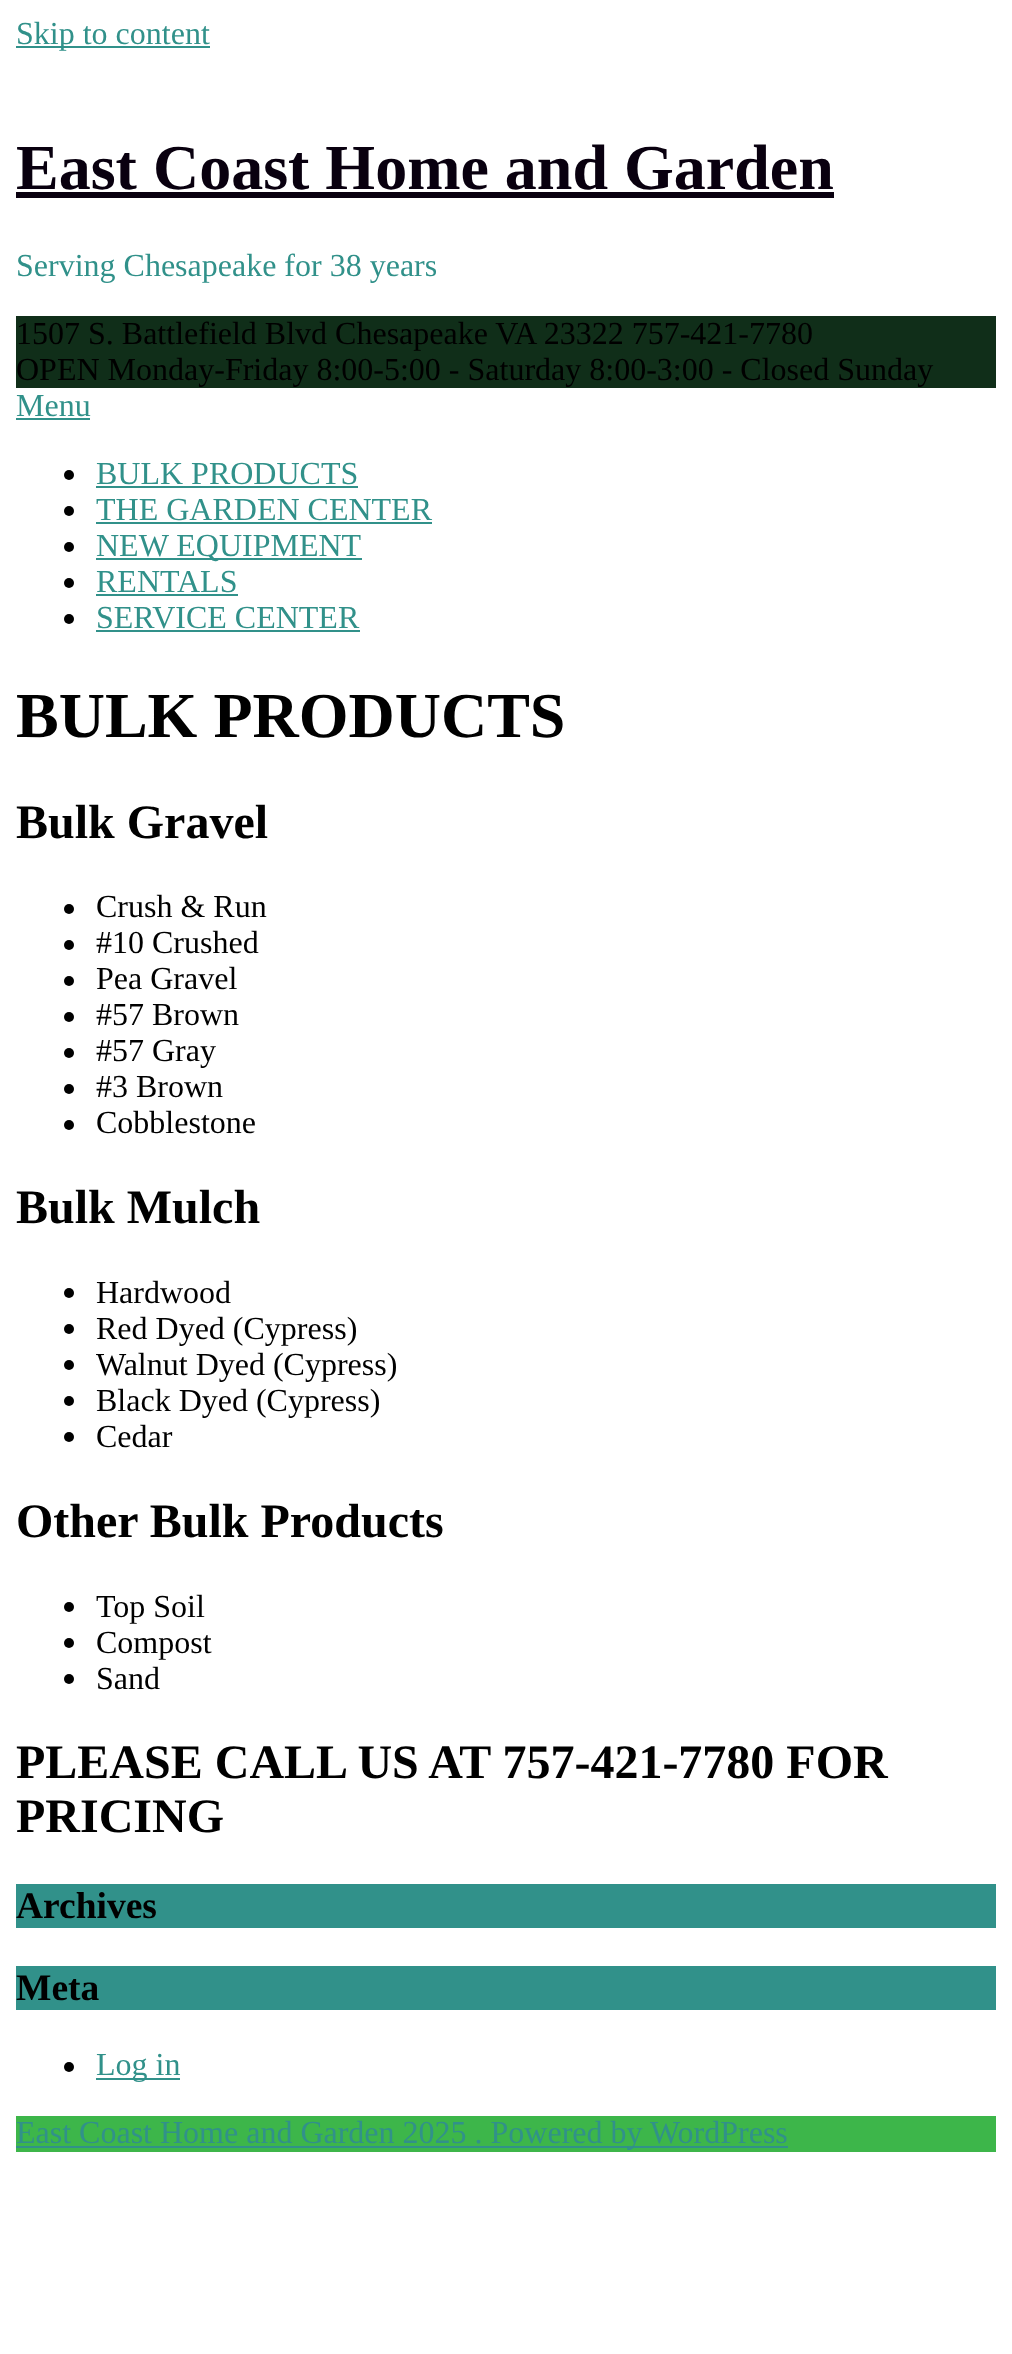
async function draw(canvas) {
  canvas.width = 1012
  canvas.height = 2354
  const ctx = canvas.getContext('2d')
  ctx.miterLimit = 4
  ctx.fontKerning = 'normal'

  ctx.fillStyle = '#fff'
  ctx.fillRect(0, 0, 1012, 2354)
  ctx.fillStyle = '#31918a'
  ctx.fillRect(16, 46, 194, 2)
  ctx.font = '32px Liberation Serif'
  ctx.fillText('Skip to content', 16, 44)
  ctx.font = 'bold 64px Liberation Serif'
  ctx.fillStyle = '#09000f'
  ctx.fillText('East Coast Home and Garden', 16, 189)
  ctx.fillRect(16, 192, 818, 6)
  ctx.font = '32px Liberation Serif'
  ctx.fillStyle = '#31918a'
  ctx.fillText('Serving Chesapeake for 38 years', 16, 276)
  ctx.fillStyle = '#102e19'
  ctx.fillRect(16, 316, 980, 72)
  ctx.fillStyle = '#000'
  ctx.fillText('1507 S. Battlefield Blvd Chesapeake VA 23322 757-421-7780', 16, 344)
  ctx.fillText('OPEN Monday-Friday 8:00-5:00 - Saturday 8:00-3:00 - Closed Sunday', 16, 380)
  ctx.fillStyle = '#31918a'
  ctx.fillText('Menu', 16, 416)
  ctx.fillRect(16, 418, 74, 2)
  ctx.fillStyle = '#000'
  ctx.beginPath()
  ctx.arc(69, 475, 5, 0, 2 * Math.PI)
  ctx.fill()
  ctx.fillStyle = '#31918a'
  ctx.fillText('BULK PRODUCTS', 96, 484)
  ctx.fillRect(96, 486, 262, 2)
  ctx.fillStyle = '#000'
  ctx.beginPath()
  ctx.arc(69, 511, 5, 0, 2 * Math.PI)
  ctx.fill()
  ctx.fillStyle = '#31918a'
  ctx.fillText('THE GARDEN CENTER', 96, 520)
  ctx.fillRect(96, 522, 336, 2)
  ctx.fillStyle = '#000'
  ctx.beginPath()
  ctx.arc(69, 547, 5, 0, 2 * Math.PI)
  ctx.fill()
  ctx.fillStyle = '#31918a'
  ctx.fillRect(96, 558, 266, 2)
  ctx.fillText('NEW EQUIPMENT', 96, 556)
  ctx.fillStyle = '#000'
  ctx.beginPath()
  ctx.arc(69, 583, 5, 0, 2 * Math.PI)
  ctx.fill()
  ctx.fillStyle = '#31918a'
  ctx.fillText('RENTALS', 96, 592)
  ctx.fillRect(96, 594, 142, 2)
  ctx.fillStyle = '#000'
  ctx.beginPath()
  ctx.arc(69, 619, 5, 0, 2 * Math.PI)
  ctx.fill()
  ctx.fillStyle = '#31918a'
  ctx.fillText('SERVICE CENTER', 96, 628)
  ctx.fillRect(96, 630, 264, 2)
  ctx.font = 'bold 64px Liberation Serif'
  ctx.fillStyle = '#000'
  ctx.fillText('BULK PRODUCTS', 16, 737)
  ctx.font = 'bold 48px Liberation Serif'
  ctx.fillText('Bulk Gravel', 16, 838)
  ctx.beginPath()
  ctx.arc(69, 909, 5, 0, 2 * Math.PI)
  ctx.fill()
  ctx.font = '32px Liberation Serif'
  ctx.fillText('Crush & Run', 96, 917)
  ctx.beginPath()
  ctx.arc(69, 945, 5, 0, 2 * Math.PI)
  ctx.fill()
  ctx.fillText('#10 Crushed', 96, 953)
  ctx.beginPath()
  ctx.arc(69, 981, 5, 0, 2 * Math.PI)
  ctx.fill()
  ctx.fillText('Pea Gravel', 96, 989)
  ctx.beginPath()
  ctx.arc(69, 1017, 5, 0, 2 * Math.PI)
  ctx.fill()
  ctx.fillText('#57 Brown', 96, 1025)
  ctx.beginPath()
  ctx.arc(69, 1053, 5, 0, 2 * Math.PI)
  ctx.fill()
  ctx.fillText('#57 Gray', 96, 1061)
  ctx.beginPath()
  ctx.arc(69, 1089, 5, 0, 2 * Math.PI)
  ctx.fill()
  ctx.fillText('#3 Brown', 96, 1097)
  ctx.beginPath()
  ctx.arc(69, 1125, 5, 0, 2 * Math.PI)
  ctx.fill()
  ctx.fillText('Cobblestone', 96, 1133)
  ctx.font = 'bold 48px Liberation Serif'
  ctx.fillText('Bulk Mulch', 16, 1223)
  ctx.beginPath()
  ctx.arc(69, 1293, 5, 0, 2 * Math.PI)
  ctx.fill()
  ctx.font = '32px Liberation Serif'
  ctx.fillText('Hardwood', 96, 1303)
  ctx.beginPath()
  ctx.arc(69, 1329, 5, 0, 2 * Math.PI)
  ctx.fill()
  ctx.fillText('Red Dyed (Cypress)', 96, 1339)
  ctx.beginPath()
  ctx.arc(69, 1365, 5, 0, 2 * Math.PI)
  ctx.fill()
  ctx.fillText('Walnut Dyed (Cypress)', 96, 1375)
  ctx.beginPath()
  ctx.arc(69, 1401, 5, 0, 2 * Math.PI)
  ctx.fill()
  ctx.fillText('Black Dyed (Cypress)', 96, 1411)
  ctx.beginPath()
  ctx.arc(69, 1437, 5, 0, 2 * Math.PI)
  ctx.fill()
  ctx.fillText('Cedar', 96, 1447)
  ctx.font = 'bold 48px Liberation Serif'
  ctx.fillText('Other Bulk Products', 16, 1537)
  ctx.beginPath()
  ctx.arc(69, 1607, 5, 0, 2 * Math.PI)
  ctx.fill()
  ctx.font = '32px Liberation Serif'
  ctx.fillText('Top Soil', 96, 1617)
  ctx.beginPath()
  ctx.arc(69, 1643, 5, 0, 2 * Math.PI)
  ctx.fill()
  ctx.fillText('Compost', 96, 1653)
  ctx.beginPath()
  ctx.arc(69, 1679, 5, 0, 2 * Math.PI)
  ctx.fill()
  ctx.fillText('Sand', 96, 1689)
  ctx.font = 'bold 48px Liberation Serif'
  ctx.fillText('PLEASE CALL US AT 757-421-7780 FOR', 16, 1778)
  ctx.fillText('PRICING', 16, 1832)
  ctx.fillStyle = '#31918a'
  ctx.fillRect(16, 1884, 980, 44)
  ctx.font = 'bold 37.5px Liberation Serif'
  ctx.fillStyle = '#000'
  ctx.fillText('Archives', 16, 1918)
  ctx.fillStyle = '#31918a'
  ctx.fillRect(16, 1966, 980, 44)
  ctx.fillStyle = '#000'
  ctx.fillText('Meta', 16, 2000)
  ctx.beginPath()
  ctx.arc(69, 2067, 5, 0, 2 * Math.PI)
  ctx.fill()
  ctx.fillStyle = '#31918a'
  ctx.fillRect(96, 2078, 84, 2)
  ctx.font = '32px Liberation Serif'
  ctx.fillText('Log in', 96, 2075)
  ctx.fillStyle = '#3db64a'
  ctx.fillRect(16, 2116, 980, 36)
  ctx.fillStyle = '#31918a'
  ctx.fillRect(16, 2146, 772, 2)
  ctx.fillText('East Coast Home and Garden 2025 . Powered by WordPress', 16, 2143)
}

draw(document.querySelector('canvas'))
